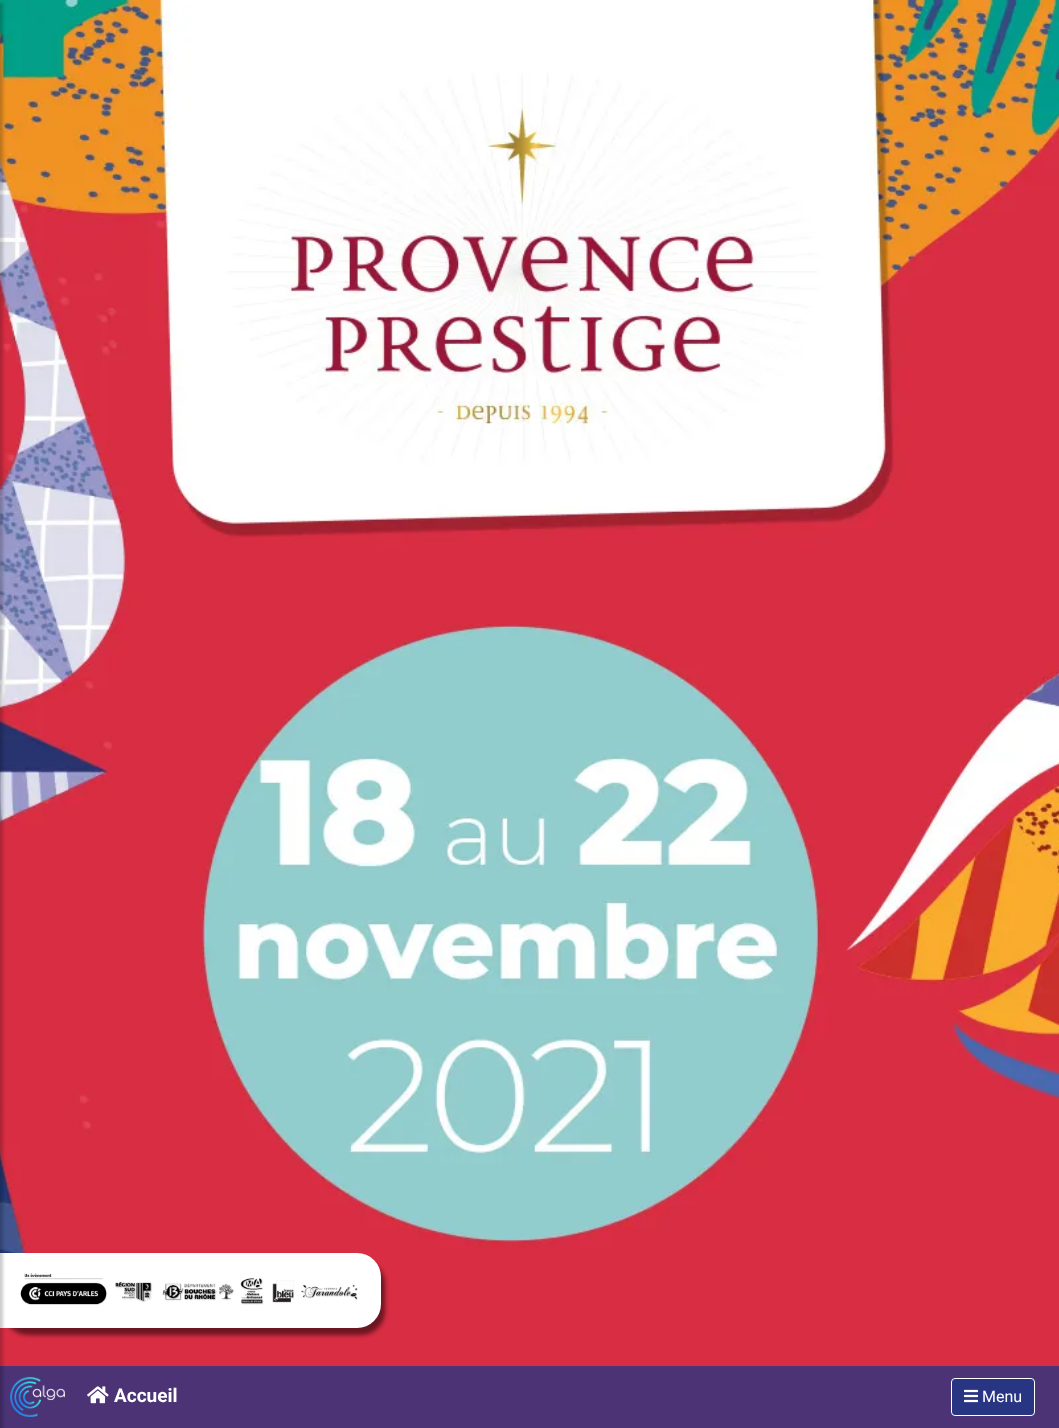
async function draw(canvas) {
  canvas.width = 1059
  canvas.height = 1428
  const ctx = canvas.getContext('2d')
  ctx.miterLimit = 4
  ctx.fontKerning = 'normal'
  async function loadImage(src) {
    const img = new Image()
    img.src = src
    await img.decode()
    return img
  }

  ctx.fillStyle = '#fff'
  ctx.fillRect(0, 0, 1059, 1428)
  ctx.drawImage(await loadImage('image0.png'), 0, 0, 1059, 1366)
  ctx.fillStyle = '#00000080'
  ctx.filter = 'blur(2px)'
  ctx.beginPath()
  ctx.roundRect(4, 1260, 381, 75, 24)
  ctx.fill()
  ctx.filter = 'none'
  ctx.fillStyle = '#fff'
  ctx.beginPath()
  ctx.roundRect(0, 1253, 381, 75, [0, 24, 24, 0])
  ctx.fill()
  ctx.fillStyle = '#4b3376'
  ctx.fillRect(0, 1366, 1059, 62)
  ctx.fillStyle = '#00000033'
  ctx.filter = 'blur(1.5px)'
  ctx.beginPath()
  ctx.rect(-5, 3, 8, 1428)
  ctx.fill()
  ctx.filter = 'none'
  ctx.drawImage(await loadImage('image1.png'), 20, 1273, 338, 32)
  ctx.drawImage(await loadImage('image2.png'), 10, 1376, 55, 41)
  ctx.drawImage(await loadImage('image3.png'), 87, 1386, 22, 18)
  ctx.font = 'bold 19px Roboto'
  ctx.fillStyle = '#fff'
  ctx.fillText('Accueil', 114, 1402)
  ctx.fillStyle = '#283583'
  ctx.beginPath()
  ctx.roundRect(951.5, 1378.5, 83, 37, 3.5)
  ctx.fill()
  ctx.strokeStyle = '#fff'
  ctx.stroke()
  ctx.drawImage(await loadImage('image4.png'), 964, 1389, 14, 14)
  ctx.font = '16px Roboto'
  ctx.fillStyle = '#fff'
  ctx.fillText('Menu', 982, 1402)
}

draw(document.querySelector('canvas'))
